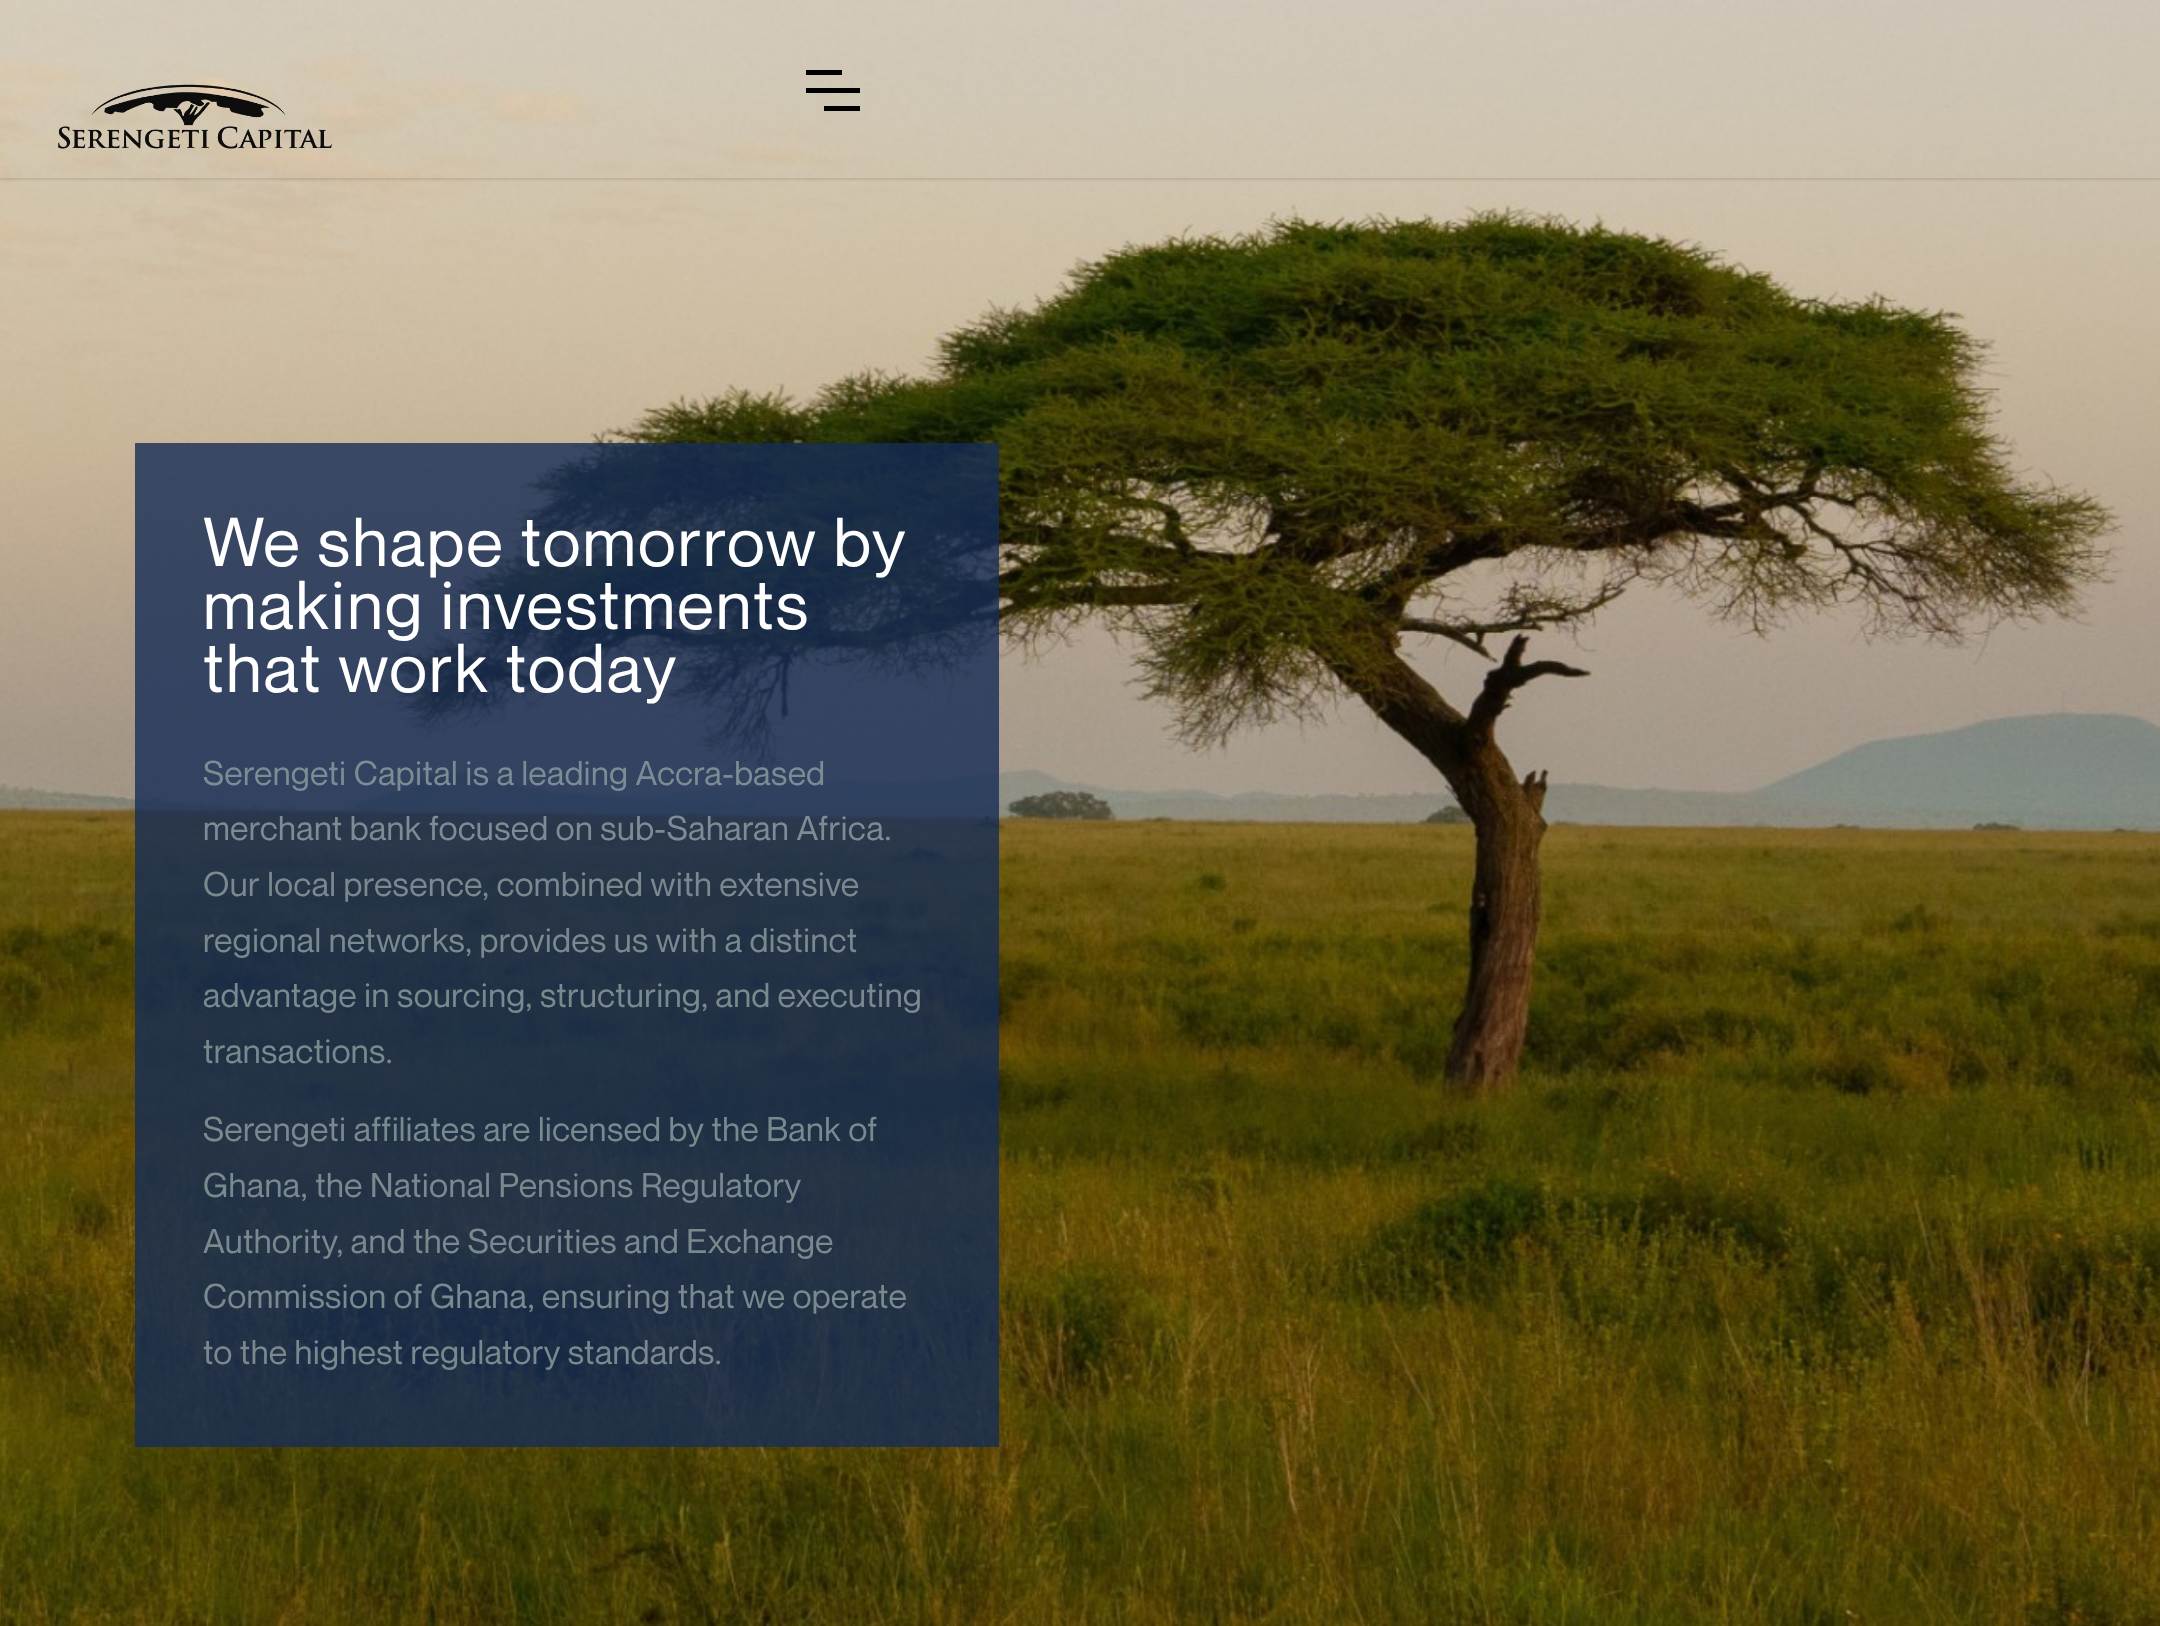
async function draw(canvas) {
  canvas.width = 2160
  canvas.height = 1626
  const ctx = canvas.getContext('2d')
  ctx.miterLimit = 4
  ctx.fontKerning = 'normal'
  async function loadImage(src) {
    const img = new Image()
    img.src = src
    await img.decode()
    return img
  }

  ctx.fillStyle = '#fff'
  ctx.fillRect(0, 0, 2160, 1626)
  ctx.drawImage(await loadImage('image0.png'), 0, 0, 2160, 1626)
  ctx.save()
  ctx.beginPath()
  ctx.moveTo(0, 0)
  ctx.lineTo(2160, 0)
  ctx.lineTo(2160, 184)
  ctx.lineTo(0, 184)
  ctx.closePath()
  ctx.moveTo(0, 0)
  ctx.lineTo(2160, 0)
  ctx.lineTo(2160, 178)
  ctx.lineTo(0, 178)
  ctx.closePath()
  ctx.clip('evenodd')
  ctx.fillStyle = '#0000001a'
  ctx.filter = 'blur(1px)'
  ctx.beginPath()
  ctx.rect(0, 2, 2160, 178)
  ctx.fill()
  ctx.filter = 'none'
  ctx.restore()
  ctx.drawImage(await loadImage('image1.png'), 58, 84, 274, 65)
  ctx.fillStyle = '#000'
  ctx.fillRect(824, 106, 36, 5)
  ctx.fillRect(806, 70, 36, 5)
  ctx.fillRect(806, 88, 54, 5)
  ctx.fillStyle = '#162d56cc'
  ctx.fillRect(135, 443, 864, 1004)
  ctx.letterSpacing = '2.25px'
  ctx.font = '67.5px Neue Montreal'
  ctx.fillStyle = '#fff'
  ctx.fillText('We shape tomorrow by', 203, 566)
  ctx.fillText('making investments', 203, 629)
  ctx.fillText('that work today', 203, 692)
  ctx.letterSpacing = '0.45px'
  ctx.font = '33.75px Neue Montreal'
  ctx.fillStyle = '#7c8c94'
  ctx.fillText('Serengeti Capital is a leading Accra-based', 203, 785)
  ctx.fillText('merchant bank focused on sub-Saharan Africa.', 203, 840)
  ctx.fillStyle = '#79898e'
  ctx.fillText('Our local presence, combined with extensive', 203, 896)
  ctx.fillText('regional networks, provides us with a distinct', 203, 952)
  ctx.fillText('advantage in sourcing, structuring, and executing', 203, 1007)
  ctx.fillText('transactions.', 203, 1063)
  ctx.fillText('Serengeti affiliates are licensed by the Bank of', 203, 1141)
  ctx.fillText('Ghana, the National Pensions Regulatory', 203, 1197)
  ctx.fillText('Authority, and the Securities and Exchange', 203, 1253)
  ctx.fillText('Commission of Ghana, ensuring that we operate', 203, 1308)
  ctx.fillText('to the highest regulatory standards.', 203, 1364)
}

draw(document.querySelector('canvas'))
